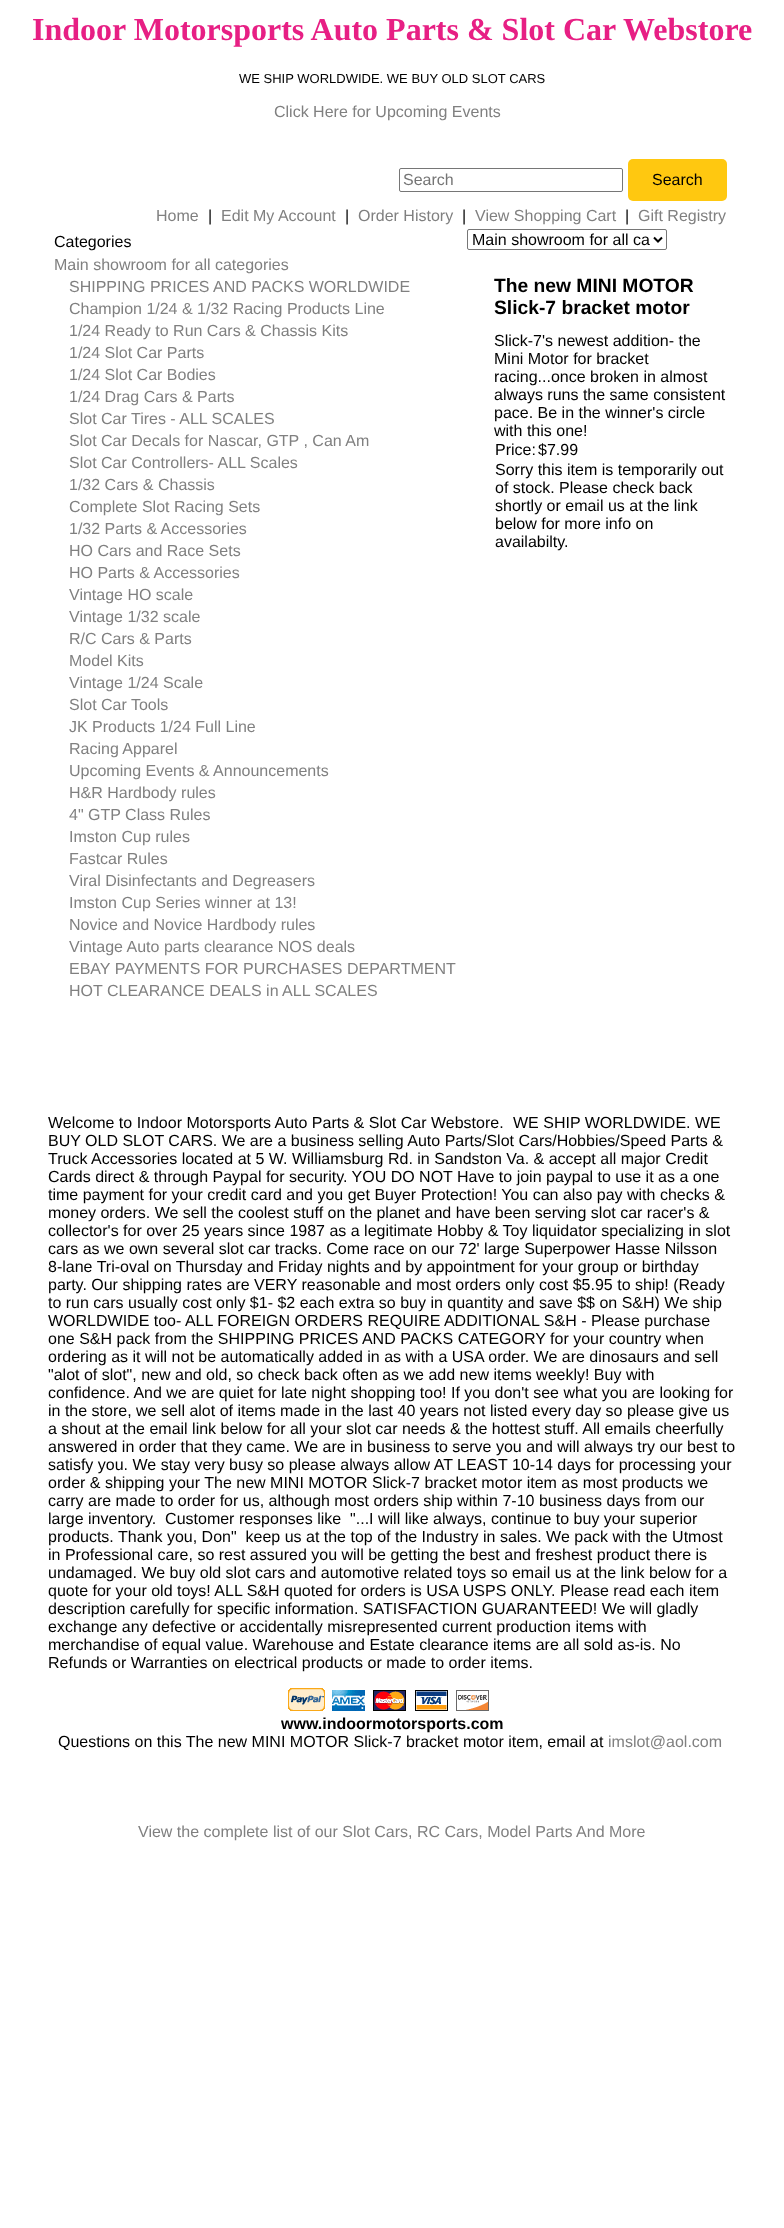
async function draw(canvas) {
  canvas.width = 784
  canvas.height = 2228
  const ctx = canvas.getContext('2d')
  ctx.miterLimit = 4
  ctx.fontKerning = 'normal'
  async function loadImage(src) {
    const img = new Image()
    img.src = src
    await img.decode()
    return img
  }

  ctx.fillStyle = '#fff'
  ctx.fillRect(0, 0, 784, 2228)
  ctx.font = 'bold 32px Liberation Serif'
  ctx.fillStyle = '#e71f84'
  ctx.fillText('Indoor Motorsports Auto Parts & Slot Car Webstore', 32, 40)
  ctx.font = '13px Liberation Sans'
  ctx.fillStyle = '#000'
  ctx.fillText('WE SHIP WORLDWIDE. WE BUY OLD SLOT CARS', 239, 83)
  ctx.font = '16px Liberation Sans'
  ctx.fillStyle = '#808080'
  ctx.fillText('Click Here for Upcoming Events', 274, 117)
  ctx.beginPath()
  ctx.roundRect(399.5, 168.5, 223, 23, 1.5)
  ctx.strokeStyle = '#767676'
  ctx.stroke()
  ctx.fillStyle = '#757575'
  ctx.fillText('Search', 403, 185)
  ctx.fillStyle = '#ffc810'
  ctx.beginPath()
  ctx.roundRect(628, 159, 99, 42, 5)
  ctx.fill()
  ctx.fillStyle = '#000'
  ctx.fillText('Search', 652, 185)
  ctx.fillStyle = '#808080'
  ctx.fillText('Home', 156, 221)
  ctx.fillStyle = '#000'
  ctx.fillText('|', 208, 221)
  ctx.fillStyle = '#808080'
  ctx.fillText('Edit My Account', 221, 221)
  ctx.fillStyle = '#000'
  ctx.fillText('|', 345, 221)
  ctx.fillStyle = '#808080'
  ctx.fillText('Order History', 358, 221)
  ctx.fillStyle = '#000'
  ctx.fillText('|', 462, 221)
  ctx.fillStyle = '#808080'
  ctx.fillText('View Shopping Cart', 475, 221)
  ctx.fillStyle = '#000'
  ctx.fillText('|', 625, 221)
  ctx.fillStyle = '#808080'
  ctx.fillText('Gift Registry', 638, 221)
  ctx.fillStyle = '#000'
  ctx.fillText('Categories', 54, 247)
  ctx.fillStyle = '#808080'
  ctx.fillText('Main showroom for all categories', 54, 270)
  ctx.fillText('SHIPPING PRICES AND PACKS WORLDWIDE', 69, 292)
  ctx.fillText('Champion 1/24 & 1/32 Racing Products Line', 69, 314)
  ctx.fillText('1/24 Ready to Run Cars & Chassis Kits', 69, 336)
  ctx.fillText('1/24 Slot Car Parts', 69, 358)
  ctx.fillText('1/24 Slot Car Bodies', 69, 380)
  ctx.fillText('1/24 Drag Cars & Parts', 69, 402)
  ctx.fillText('Slot Car Tires - ALL SCALES', 69, 424)
  ctx.fillText('Slot Car Decals for Nascar, GTP , Can Am', 69, 446)
  ctx.fillText('Slot Car Controllers- ALL Scales', 69, 468)
  ctx.fillText('1/32 Cars & Chassis', 69, 490)
  ctx.fillText('Complete Slot Racing Sets', 69, 512)
  ctx.fillText('1/32 Parts & Accessories', 69, 534)
  ctx.fillText('HO Cars and Race Sets', 69, 556)
  ctx.fillText('HO Parts & Accessories', 69, 578)
  ctx.fillText('Vintage HO scale', 69, 600)
  ctx.fillText('Vintage 1/32 scale', 69, 622)
  ctx.fillText('R/C Cars & Parts', 69, 644)
  ctx.fillText('Model Kits', 69, 666)
  ctx.fillText('Vintage 1/24 Scale', 69, 688)
  ctx.fillText('Slot Car Tools', 69, 710)
  ctx.fillText('JK Products 1/24 Full Line', 69, 732)
  ctx.fillText('Racing Apparel', 69, 754)
  ctx.fillText('Upcoming Events & Announcements', 69, 776)
  ctx.fillText('H&R Hardbody rules', 69, 798)
  ctx.fillText('4" GTP Class Rules', 69, 820)
  ctx.fillText('Imston Cup rules', 69, 842)
  ctx.fillText('Fastcar Rules', 69, 864)
  ctx.fillText('Viral Disinfectants and Degreasers', 69, 886)
  ctx.fillText('Imston Cup Series winner at 13!', 69, 908)
  ctx.fillText('Novice and Novice Hardbody rules', 69, 930)
  ctx.fillText('Vintage Auto parts clearance NOS deals', 69, 952)
  ctx.fillText('EBAY PAYMENTS FOR PURCHASES DEPARTMENT', 69, 974)
  ctx.fillText('HOT CLEARANCE DEALS in ALL SCALES', 69, 996)
  ctx.beginPath()
  ctx.roundRect(467.5, 229.5, 199, 20, 1.5)
  ctx.stroke()
  ctx.beginPath()
  ctx.moveTo(654, 237.5)
  ctx.lineTo(658, 241.5)
  ctx.lineTo(662, 237.5)
  ctx.strokeStyle = '#000'
  ctx.lineWidth = 2
  ctx.stroke()
  ctx.fillStyle = '#000'
  ctx.fillText('Main showroom for all ca', 472, 245)
  ctx.font = 'bold 19.25px Liberation Sans'
  ctx.fillText('The new MINI MOTOR', 494, 292)
  ctx.fillText('Slick-7 bracket motor', 494, 314)
  ctx.font = '16px Liberation Sans'
  ctx.fillText('Slick-7\'s newest addition- the', 494, 346)
  ctx.fillText('Mini Motor for bracket', 494, 364)
  ctx.fillText('racing...once broken in almost', 494, 382)
  ctx.fillText('always runs the same consistent', 494, 400)
  ctx.fillText('pace. Be in the winner\'s circle', 494, 418)
  ctx.fillText('with this one!', 494, 436)
  ctx.fillText('Price:', 495, 455)
  ctx.fillText('$7.99', 538, 455)
  ctx.fillText('Sorry this item is temporarily out', 495, 475)
  ctx.fillText('of stock. Please check back', 495, 493)
  ctx.fillText('shortly or email us at the link', 495, 511)
  ctx.fillText('below for more info on', 495, 529)
  ctx.fillText('availabilty.', 495, 547)
  ctx.fillText('Welcome to Indoor Motorsports Auto Parts & Slot Car Webstore.', 48, 1128)
  ctx.fillText('WE SHIP WORLDWIDE. WE', 513, 1128)
  ctx.fillText('BUY OLD SLOT CARS. We are a business selling Auto Parts/Slot Cars/Hobbies/Speed Parts &', 48, 1146)
  ctx.fillText('Truck Accessories located at 5 W. Williamsburg Rd. in Sandston Va. & accept all major Credit', 48, 1164)
  ctx.fillText('Cards direct & through Paypal for security. YOU DO NOT Have to join paypal to use it as a one', 48, 1182)
  ctx.fillText('time payment for your credit card and you get Buyer Protection! You can also pay with checks &', 48, 1200)
  ctx.fillText('money orders. We sell the coolest stuff on the planet and have been serving slot car racer\'s &', 48, 1218)
  ctx.fillText('collector\'s for over 25 years since 1987 as a legitimate Hobby & Toy liquidator specializing in slot', 48, 1236)
  ctx.fillText('cars as we own several slot car tracks. Come race on our 72\' large Superpower Hasse Nilsson', 48, 1254)
  ctx.fillText('8-lane Tri-oval on Thursday and Friday nights and by appointment for your group or birthday', 48, 1272)
  ctx.fillText('party. Our shipping rates are VERY reasonable and most orders only cost $5.95 to ship! (Ready', 48, 1290)
  ctx.fillText('to run cars usually cost only $1- $2 each extra so buy in quantity and save $$ on S&H) We ship', 48, 1308)
  ctx.fillText('WORLDWIDE too- ALL FOREIGN ORDERS REQUIRE ADDITIONAL S&H - Please purchase', 48, 1326)
  ctx.fillText('one S&H pack from the SHIPPING PRICES AND PACKS CATEGORY for your country when', 48, 1344)
  ctx.fillText('ordering as it will not be automatically added in as with a USA order. We are dinosaurs and sell', 48, 1362)
  ctx.fillText('"alot of slot", new and old, so check back often as we add new items weekly! Buy with', 48, 1380)
  ctx.fillText('confidence. And we are quiet for late night shopping too! If you don\'t see what you are looking for', 48, 1398)
  ctx.fillText('in the store, we sell alot of items made in the last 40 years not listed every day so please give us', 48, 1416)
  ctx.fillText('a shout at the email link below for all your slot car needs & the hottest stuff. All emails cheerfully', 48, 1434)
  ctx.fillText('answered in order that they came. We are in business to serve you and will always try our best to', 48, 1452)
  ctx.fillText('satisfy you. We stay very busy so please always allow AT LEAST 10-14 days for processing your', 48, 1470)
  ctx.fillText('order & shipping your The new MINI MOTOR Slick-7 bracket motor item as most products we', 48, 1488)
  ctx.fillText('carry are made to order for us, although most orders ship within 7-10 business days from our', 48, 1506)
  ctx.fillText('large inventory.  Customer responses like  "...I will like always, continue to buy your superior', 48, 1524)
  ctx.fillText('products. Thank you, Don"  keep us at the top of the Industry in sales. We pack with the Utmost', 48, 1542)
  ctx.fillText('in Professional care, so rest assured you will be getting the best and freshest product there is', 48, 1560)
  ctx.fillText('undamaged. We buy old slot cars and automotive related toys so email us at the link below for a', 48, 1578)
  ctx.fillText('quote for your old toys! ALL S&H quoted for orders is USA USPS ONLY. Please read each item', 48, 1596)
  ctx.fillText('description carefully for specific information. SATISFACTION GUARANTEED! We will gladly', 48, 1614)
  ctx.fillText('exchange any defective or accidentally misrepresented current production items with', 48, 1632)
  ctx.fillText('merchandise of equal value. Warehouse and Estate clearance items are all sold as-is. No', 48, 1650)
  ctx.fillText('Refunds or Warranties on electrical products or made to order items.', 48, 1668)
  ctx.drawImage(await loadImage('image0.png'), 288, 1688, 37, 23)
  ctx.drawImage(await loadImage('image1.png'), 332, 1690, 33, 21)
  ctx.drawImage(await loadImage('image2.png'), 373, 1690, 33, 21)
  ctx.drawImage(await loadImage('image3.png'), 415, 1690, 33, 21)
  ctx.drawImage(await loadImage('image4.png'), 456, 1690, 33, 21)
  ctx.font = 'bold 16px Liberation Sans'
  ctx.fillText('www.indoormotorsports.com', 281, 1729)
  ctx.font = '16px Liberation Sans'
  ctx.fillText('Questions on this The new MINI MOTOR Slick-7 bracket motor item, email at', 58, 1747)
  ctx.fillStyle = '#808080'
  ctx.fillText('imslot@aol.com', 608, 1747)
  ctx.fillText('View the complete list of our Slot Cars, RC Cars, Model Parts And More', 138, 1837)
}

draw(document.querySelector('canvas'))
